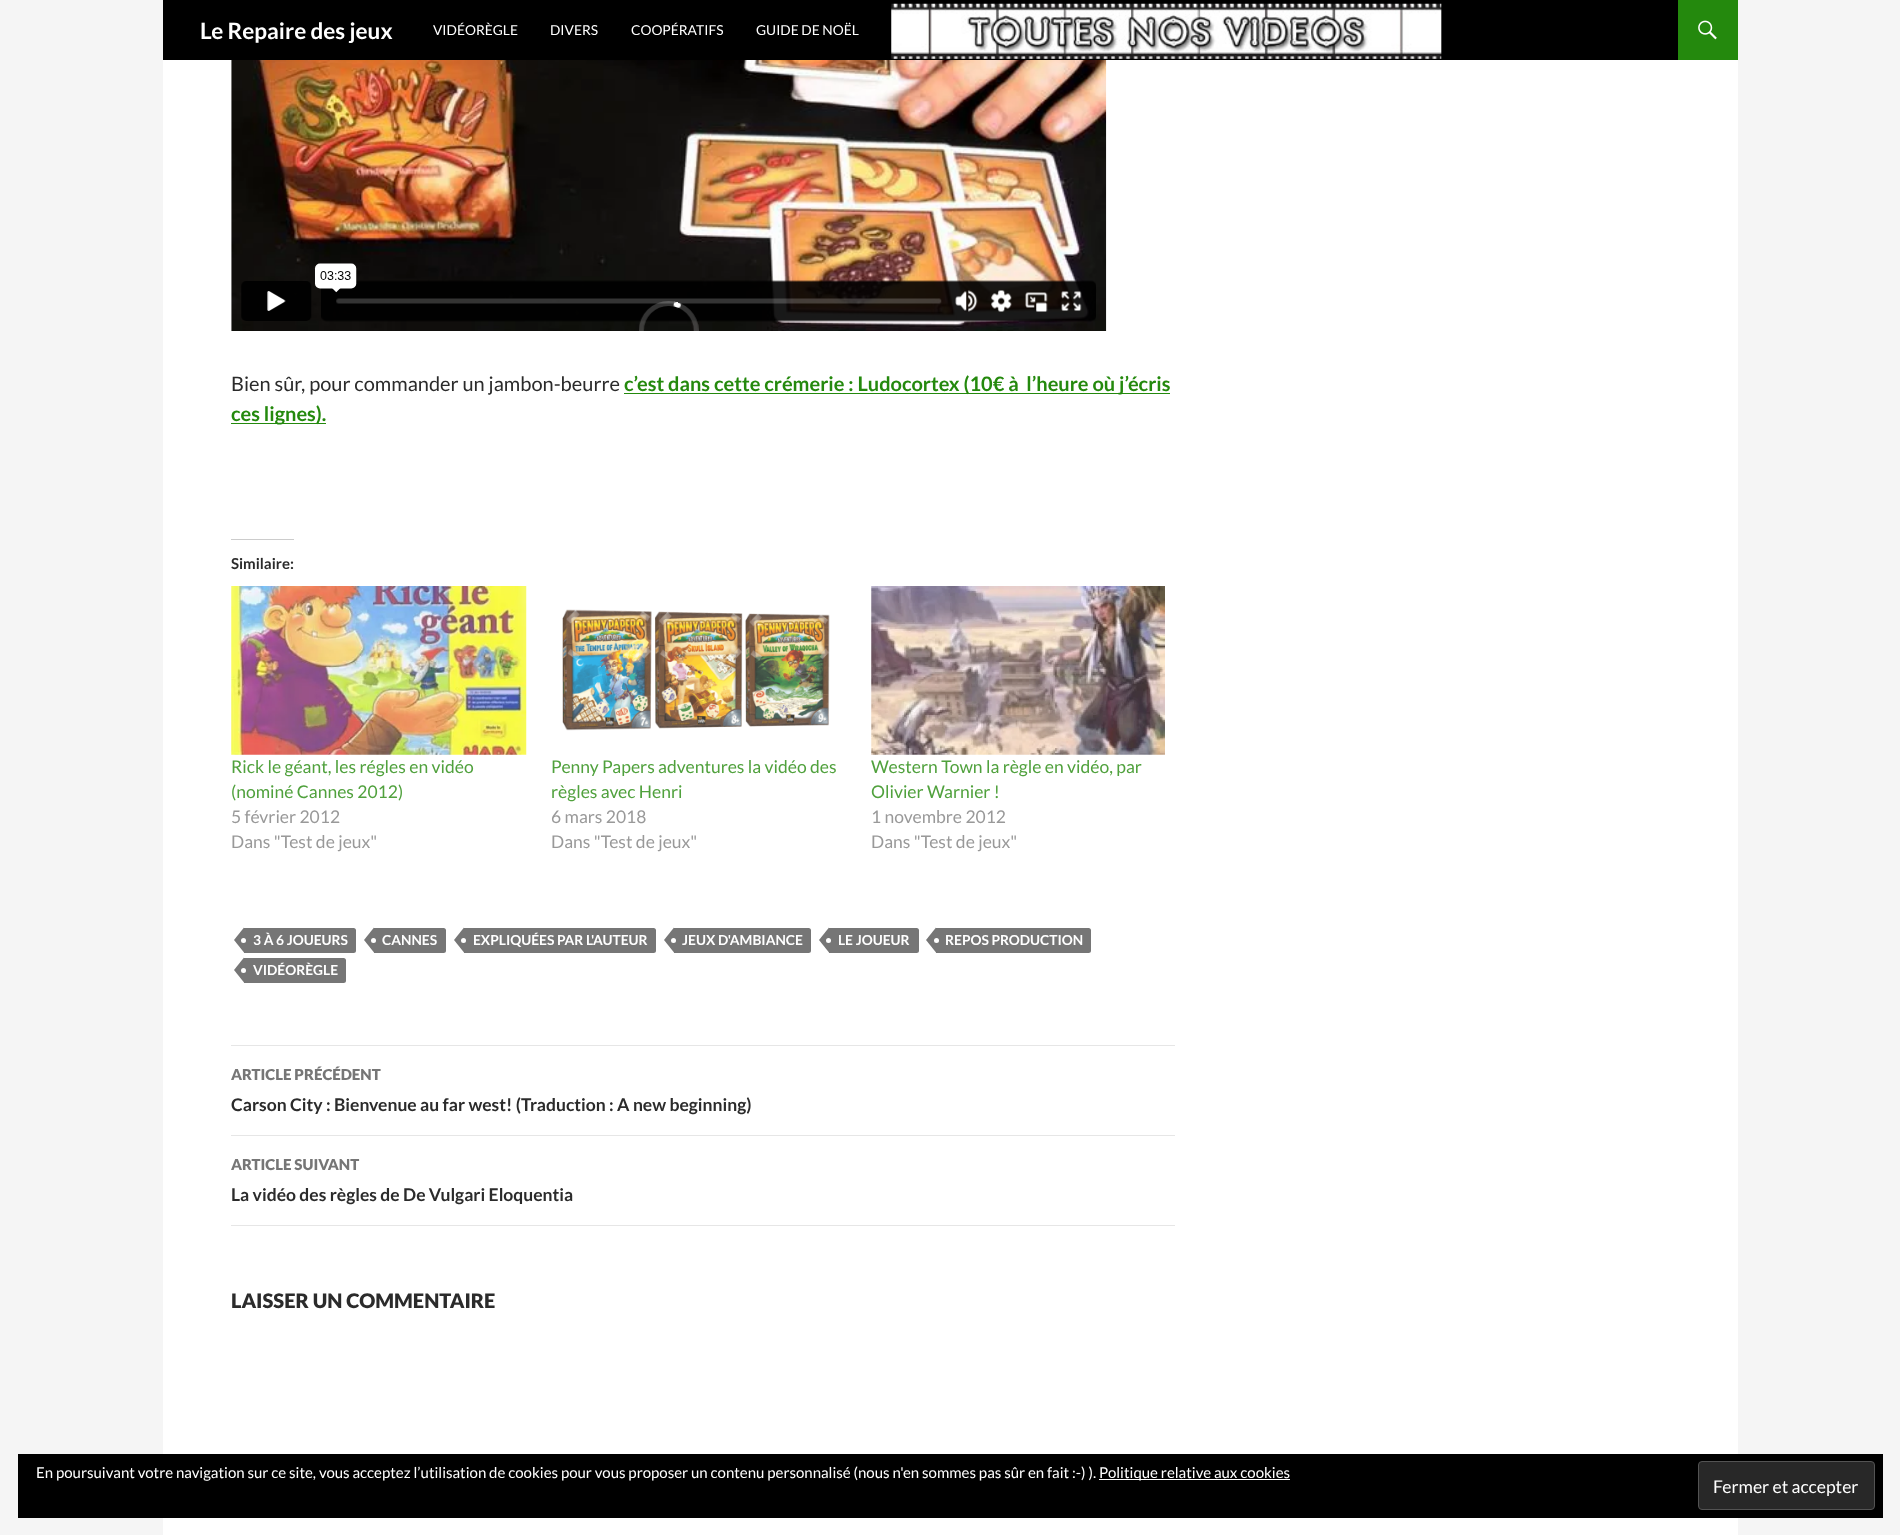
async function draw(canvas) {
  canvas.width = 1900
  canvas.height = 1535
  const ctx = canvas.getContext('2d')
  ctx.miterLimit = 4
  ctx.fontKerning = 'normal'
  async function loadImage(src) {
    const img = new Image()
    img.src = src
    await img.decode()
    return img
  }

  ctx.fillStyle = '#f5f5f5'
  ctx.fillRect(0, 0, 1900, 1535)
  ctx.fillStyle = '#fff'
  ctx.fillRect(163, 60, 1575, 1475)
  ctx.fillStyle = '#000'
  ctx.fillRect(163, 0, 1515, 60)
  ctx.font = 'bold 22.5px Lato'
  ctx.fillStyle = '#fff'
  ctx.fillText('Le Repaire des jeux', 200, 39)
  ctx.font = '13.75px Lato'
  ctx.fillText('VIDÉORÈGLE', 433, 35)
  ctx.fillText('DIVERS', 550, 35)
  ctx.fillText('COOPÉRATIFS', 631, 35)
  ctx.fillText('GUIDE DE NOËL', 756, 35)
  ctx.drawImage(await loadImage('image0.png'), 891, 3, 551, 56)
  ctx.fillStyle = '#24890d'
  ctx.fillRect(1678, 0, 60, 60)
  ctx.drawImage(await loadImage('image1.png'), 1698, 20, 19, 20)
  ctx.drawImage(await loadImage('image2.png'), 231, 60, 876, 271)
  ctx.font = '20px Lato'
  ctx.fillStyle = '#2b2b2b'
  ctx.fillText('Bien sûr, pour commander un jambon-beurre', 231, 391)
  ctx.fillStyle = '#24890d'
  ctx.fillRect(624, 393, 546, 1)
  ctx.font = 'bold 20px Lato'
  ctx.fillText('c’est dans cette crémerie : Ludocortex (10€ à  l’heure où j’écris', 624, 391)
  ctx.fillRect(231, 423, 95, 1)
  ctx.fillText('ces lignes).', 231, 421)
  ctx.fillStyle = '#ccc'
  ctx.fillRect(231, 539, 63, 1)
  ctx.font = 'bold 15px Lato'
  ctx.fillStyle = '#2b2b2b'
  ctx.fillText('Similaire:', 231, 569)
  ctx.drawImage(await loadImage('image3.png'), 231, 586, 296, 169)
  ctx.font = '17.5px Lato'
  ctx.fillStyle = '#50a13d'
  ctx.fillText('Rick le géant, les régles en vidéo', 231, 773)
  ctx.fillText('(nominé Cannes 2012)', 231, 798)
  ctx.fillStyle = '#999'
  ctx.fillText('5 février 2012', 231, 823)
  ctx.fillText('Dans "Test de jeux"', 231, 848)
  ctx.drawImage(await loadImage('image4.png'), 562, 609, 268, 122)
  ctx.fillStyle = '#50a13d'
  ctx.fillText('Penny Papers adventures la vidéo des', 551, 773)
  ctx.fillText('règles avec Henri', 551, 798)
  ctx.fillStyle = '#999'
  ctx.fillText('6 mars 2018', 551, 823)
  ctx.fillText('Dans "Test de jeux"', 551, 848)
  ctx.drawImage(await loadImage('image5.png'), 871, 586, 294, 169)
  ctx.fillStyle = '#50a13d'
  ctx.fillText('Western Town la règle en vidéo, par', 871, 773)
  ctx.fillText('Olivier Warnier !', 871, 798)
  ctx.fillStyle = '#999'
  ctx.fillText('1 novembre 2012', 871, 823)
  ctx.fillText('Dans "Test de jeux"', 871, 848)
  ctx.fillStyle = '#767676'
  ctx.beginPath()
  ctx.roundRect(244, 928, 112, 25, [0, 2.5, 2.5, 0])
  ctx.fill()
  ctx.beginPath()
  ctx.moveTo(244, 927.5)
  ctx.lineTo(244, 952.5)
  ctx.lineTo(234, 940)
  ctx.closePath()
  ctx.fill()
  ctx.font = 'bold 13.75px Lato'
  ctx.fillStyle = '#fff'
  ctx.fillText('3 À 6 JOUEURS', 253, 945)
  ctx.beginPath()
  ctx.arc(243.5, 940.5, 2.5, 0, 2 * Math.PI)
  ctx.fill()
  ctx.fillStyle = '#767676'
  ctx.beginPath()
  ctx.roundRect(374, 928, 72, 25, [0, 2.5, 2.5, 0])
  ctx.fill()
  ctx.beginPath()
  ctx.moveTo(374, 927.5)
  ctx.lineTo(374, 952.5)
  ctx.lineTo(364, 940)
  ctx.closePath()
  ctx.fill()
  ctx.fillStyle = '#fff'
  ctx.fillText('CANNES', 382, 945)
  ctx.beginPath()
  ctx.arc(373.5, 940.5, 2.5, 0, 2 * Math.PI)
  ctx.fill()
  ctx.fillStyle = '#767676'
  ctx.beginPath()
  ctx.roundRect(464, 928, 192, 25, [0, 2.5, 2.5, 0])
  ctx.fill()
  ctx.beginPath()
  ctx.moveTo(464, 927.5)
  ctx.lineTo(464, 952.5)
  ctx.lineTo(454, 940)
  ctx.closePath()
  ctx.fill()
  ctx.fillStyle = '#fff'
  ctx.fillText('EXPLIQUÉES PAR L\'AUTEUR', 473, 945)
  ctx.beginPath()
  ctx.arc(463.5, 940.5, 2.5, 0, 2 * Math.PI)
  ctx.fill()
  ctx.fillStyle = '#767676'
  ctx.beginPath()
  ctx.roundRect(674, 928, 137, 25, [0, 2.5, 2.5, 0])
  ctx.fill()
  ctx.beginPath()
  ctx.moveTo(674, 927.5)
  ctx.lineTo(674, 952.5)
  ctx.lineTo(664, 940)
  ctx.closePath()
  ctx.fill()
  ctx.fillStyle = '#fff'
  ctx.fillText('JEUX D\'AMBIANCE', 682, 945)
  ctx.beginPath()
  ctx.arc(673.5, 940.5, 2.5, 0, 2 * Math.PI)
  ctx.fill()
  ctx.fillStyle = '#767676'
  ctx.beginPath()
  ctx.roundRect(829, 928, 90, 25, [0, 2.5, 2.5, 0])
  ctx.fill()
  ctx.beginPath()
  ctx.moveTo(829, 927.5)
  ctx.lineTo(829, 952.5)
  ctx.lineTo(819, 940)
  ctx.closePath()
  ctx.fill()
  ctx.fillStyle = '#fff'
  ctx.fillText('LE JOUEUR', 838, 945)
  ctx.beginPath()
  ctx.arc(828.5, 940.5, 2.5, 0, 2 * Math.PI)
  ctx.fill()
  ctx.fillStyle = '#767676'
  ctx.beginPath()
  ctx.roundRect(936, 928, 155, 25, [0, 2.5, 2.5, 0])
  ctx.fill()
  ctx.beginPath()
  ctx.moveTo(936, 927.5)
  ctx.lineTo(936, 952.5)
  ctx.lineTo(926, 940)
  ctx.closePath()
  ctx.fill()
  ctx.fillStyle = '#fff'
  ctx.beginPath()
  ctx.arc(936.5, 940.5, 2.5, 0, 2 * Math.PI)
  ctx.fill()
  ctx.fillText('REPOS PRODUCTION', 945, 945)
  ctx.fillStyle = '#767676'
  ctx.beginPath()
  ctx.roundRect(244, 958, 102, 25, [0, 2.5, 2.5, 0])
  ctx.fill()
  ctx.beginPath()
  ctx.moveTo(244, 957.5)
  ctx.lineTo(244, 982.5)
  ctx.lineTo(234, 970)
  ctx.closePath()
  ctx.fill()
  ctx.fillStyle = '#fff'
  ctx.fillText('VIDÉORÈGLE', 253, 975)
  ctx.beginPath()
  ctx.arc(243.5, 970.5, 2.5, 0, 2 * Math.PI)
  ctx.fill()
  ctx.fillStyle = '#e6e6e6'
  ctx.fillRect(231, 1045, 944, 1)
  ctx.fillRect(231, 1135, 944, 1)
  ctx.font = '900 15px Lato'
  ctx.fillStyle = '#767676'
  ctx.fillText('ARTICLE PRÉCÉDENT', 231, 1080)
  ctx.font = 'bold 17.5px Lato'
  ctx.fillStyle = '#2b2b2b'
  ctx.fillText('Carson City : Bienvenue au far west! (Traduction : A new beginning)', 231, 1111)
  ctx.fillStyle = '#e6e6e6'
  ctx.fillRect(231, 1225, 944, 1)
  ctx.font = '900 15px Lato'
  ctx.fillStyle = '#767676'
  ctx.fillText('ARTICLE SUIVANT', 231, 1170)
  ctx.font = 'bold 17.5px Lato'
  ctx.fillStyle = '#2b2b2b'
  ctx.fillText('La vidéo des règles de De Vulgari Eloquentia', 231, 1201)
  ctx.font = '900 20px Lato'
  ctx.fillText('LAISSER UN COMMENTAIRE', 231, 1308)
  ctx.fillStyle = '#000'
  ctx.fillRect(18, 1454, 1865, 64)
  ctx.font = '15px Lato'
  ctx.fillStyle = '#fff'
  ctx.fillText('En poursuivant votre navigation sur ce site, vous acceptez l’utilisation de cookies pour vous proposer un contenu personnalisé (nous n\'en sommes pas sûr en fait :-) ).', 36, 1478)
  ctx.fillRect(1099, 1479, 191, 1)
  ctx.fillText('Politique relative aux cookies', 1099, 1478)
  ctx.fillStyle = '#282828'
  ctx.beginPath()
  ctx.roundRect(1698.5, 1461.5, 176, 48, 3.5)
  ctx.fill()
  ctx.strokeStyle = '#535353'
  ctx.stroke()
  ctx.font = '17.5px Lato'
  ctx.fillStyle = '#fff'
  ctx.fillText('Fermer et accepter', 1713, 1493)
}

draw(document.querySelector('canvas'))
